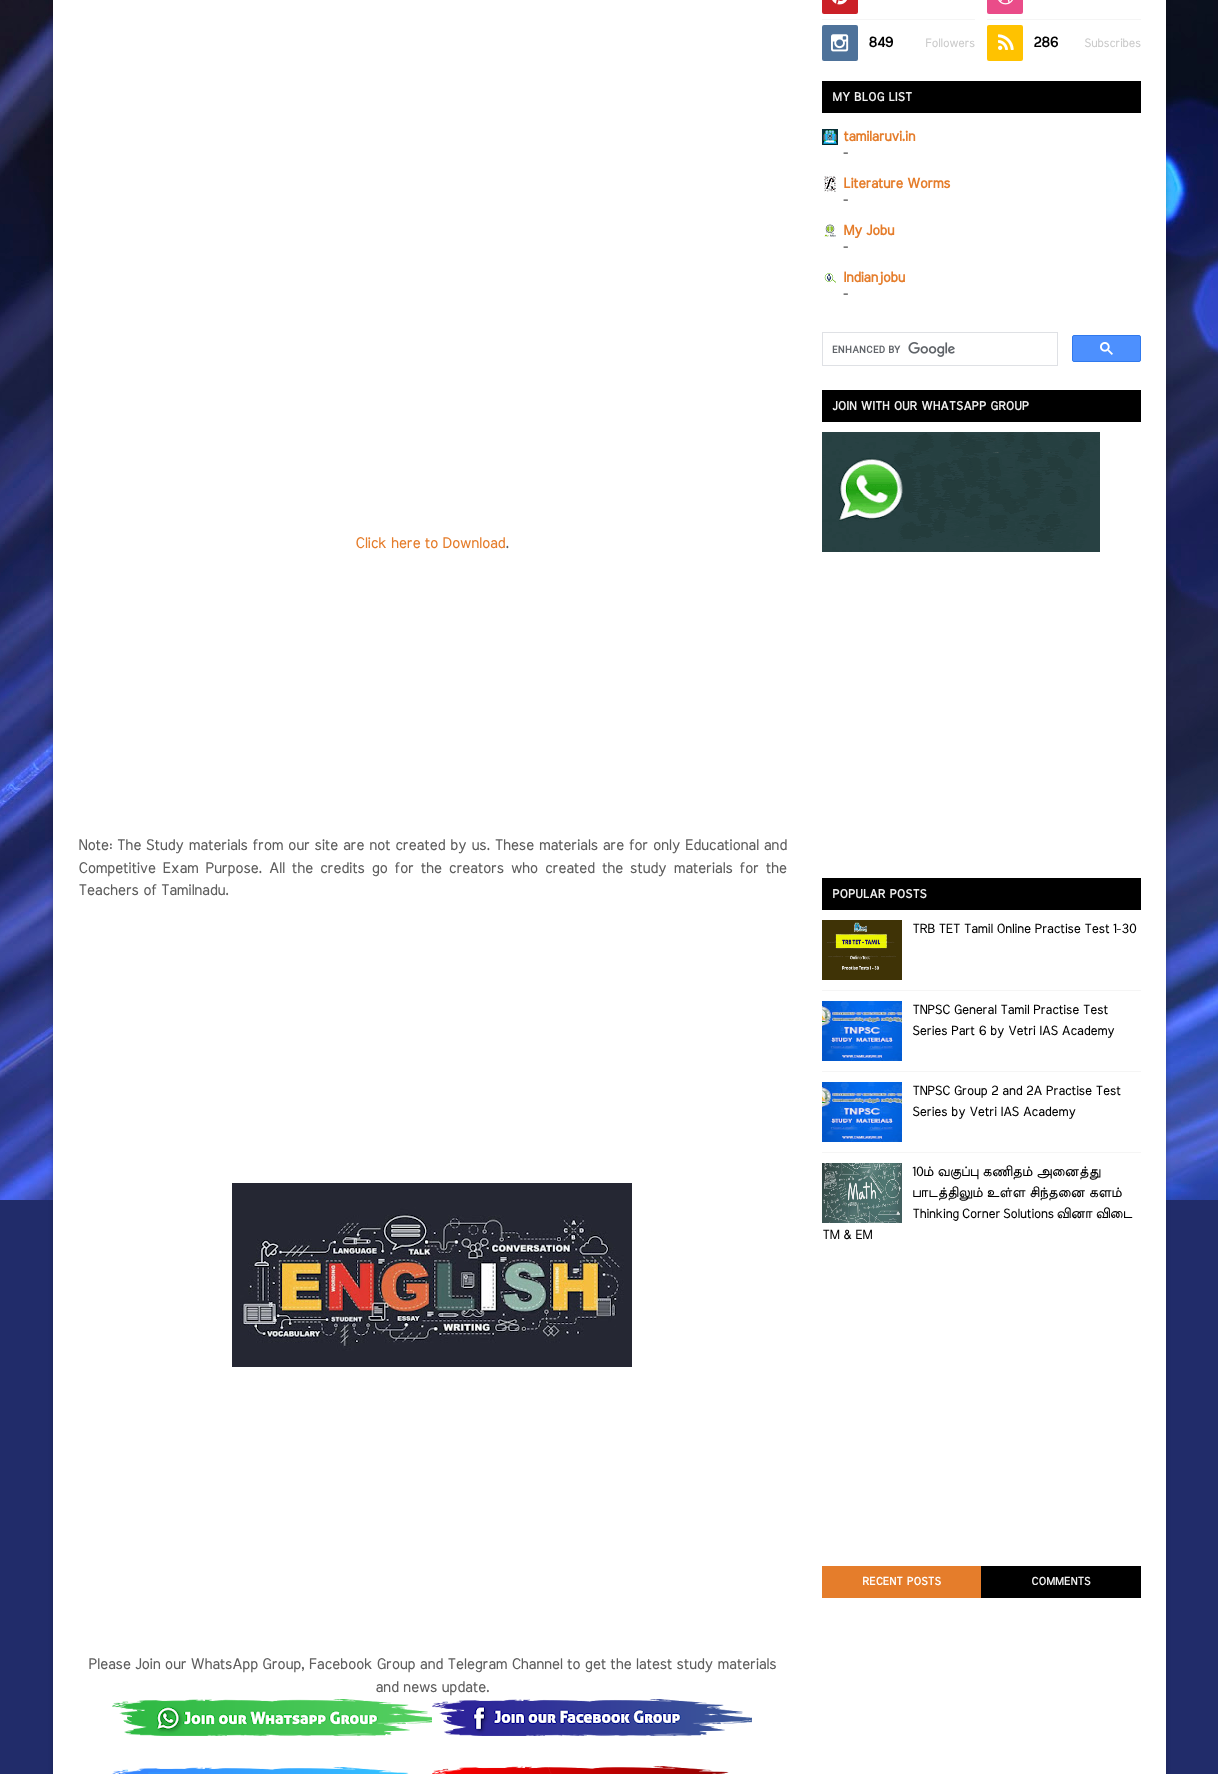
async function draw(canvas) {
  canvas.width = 1218
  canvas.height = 1774
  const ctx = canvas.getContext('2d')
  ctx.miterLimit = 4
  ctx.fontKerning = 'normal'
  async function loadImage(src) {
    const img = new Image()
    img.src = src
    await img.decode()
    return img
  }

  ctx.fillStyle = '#212c6a'
  ctx.fillRect(0, 0, 1218, 1774)
  ctx.drawImage(await loadImage('image0.png'), 0, 0, 1218, 1200)
  ctx.fillStyle = '#00000033'
  ctx.filter = 'blur(2.5px)'
  ctx.beginPath()
  ctx.rect(53, -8, 1113, 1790)
  ctx.fill()
  ctx.filter = 'none'
  ctx.fillStyle = '#fff'
  ctx.fillRect(53, 0, 1113, 1774)
  ctx.font = '15px Meera Inimai'
  ctx.fillStyle = '#e57d2b'
  ctx.fillText('Click here to Download', 355, 548)
  ctx.fillStyle = '#5e5e5e'
  ctx.fillText('.', 505, 548)
  ctx.wordSpacing = '0.5px'
  ctx.fillText('Note: The Study materials from our site are not created by us. These materials are for only Educational and', 78, 850)
  ctx.wordSpacing = '2.6px'
  ctx.fillText('Competitive Exam Purpose. All the credits go for the creators who created the study materials for the', 78, 873)
  ctx.wordSpacing = '0px'
  ctx.fillText('Teachers of Tamilnadu.', 78, 895)
  ctx.drawImage(await loadImage('image1.png'), 232, 1183, 400, 184)
  ctx.fillText('Please Join our WhatsApp Group, Facebook Group and Telegram Channel to get the latest study materials', 88, 1669)
  ctx.fillText('and news update.', 375, 1692)
  ctx.drawImage(await loadImage('image2.png'), 112, 1699, 320, 37)
  ctx.drawImage(await loadImage('image3.png'), 432, 1699, 320, 37)
  ctx.drawImage(await loadImage('image4.png'), 112, 1767, 297, 7)
  ctx.drawImage(await loadImage('image5.png'), 432, 1766, 297, 8)
  ctx.fillStyle = '#f5f5f5'
  ctx.fillRect(822, 19, 153, 1)
  ctx.fillStyle = '#cb2027'
  ctx.beginPath()
  ctx.roundRect(822, -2, 36, 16, 2)
  ctx.fill()
  ctx.drawImage(await loadImage('image6.png'), 832, 0, 15, 5)
  ctx.fillStyle = '#f5f5f5'
  ctx.fillRect(987, 19, 154, 1)
  ctx.fillStyle = '#ea4c89'
  ctx.beginPath()
  ctx.roundRect(987, -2, 36, 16, 2)
  ctx.fill()
  ctx.drawImage(await loadImage('image7.png'), 998, 0, 15, 5)
  ctx.fillStyle = '#4e729a'
  ctx.beginPath()
  ctx.roundRect(822, 25, 36, 36, 2)
  ctx.fill()
  ctx.drawImage(await loadImage('image8.png'), 831, 34, 18, 18)
  ctx.font = 'bold 14px Meera Inimai'
  ctx.fillStyle = '#000'
  ctx.fillText('849', 868, 47)
  ctx.font = '12px Meera Inimai'
  ctx.fillStyle = '#cbcbcb'
  ctx.fillText('Followers', 925, 47)
  ctx.fillStyle = '#ffc200'
  ctx.beginPath()
  ctx.roundRect(987, 25, 36, 36, 2)
  ctx.fill()
  ctx.drawImage(await loadImage('image9.png'), 998, 34, 16, 16)
  ctx.font = 'bold 14px Meera Inimai'
  ctx.fillStyle = '#000'
  ctx.fillText('286', 1033, 47)
  ctx.font = '12px Meera Inimai'
  ctx.fillStyle = '#cbcbcb'
  ctx.fillText('Subscribes', 1084, 47)
  ctx.fillStyle = '#000'
  ctx.fillRect(822, 81, 319, 32)
  ctx.letterSpacing = '0.5px'
  ctx.font = 'bold 12px Meera Inimai'
  ctx.fillStyle = '#eee'
  ctx.fillText('MY BLOG LIST', 832, 101)
  ctx.drawImage(await loadImage('image10.png'), 822, 129, 16, 16)
  ctx.letterSpacing = '0px'
  ctx.font = 'bold 14px Meera Inimai'
  ctx.fillStyle = '#e57d2b'
  ctx.fillText('tamilaruvi.in', 843, 141)
  ctx.font = 'bold 13px Meera Inimai'
  ctx.fillStyle = '#4f4f4f'
  ctx.fillText('-', 843, 157)
  ctx.drawImage(await loadImage('image11.png'), 824, 176, 12, 16)
  ctx.font = 'bold 14px Meera Inimai'
  ctx.fillStyle = '#e57d2b'
  ctx.fillText('Literature Worms', 843, 188)
  ctx.font = 'bold 13px Meera Inimai'
  ctx.fillStyle = '#4f4f4f'
  ctx.fillText('-', 843, 204)
  ctx.drawImage(await loadImage('image12.png'), 824, 224, 12, 13)
  ctx.font = 'bold 14px Meera Inimai'
  ctx.fillStyle = '#e57d2b'
  ctx.fillText('My Jobu', 843, 235)
  ctx.font = 'bold 13px Meera Inimai'
  ctx.fillStyle = '#4f4f4f'
  ctx.fillText('-', 843, 251)
  ctx.drawImage(await loadImage('image13.png'), 824, 273, 12, 10)
  ctx.font = 'bold 14px Meera Inimai'
  ctx.fillStyle = '#e57d2b'
  ctx.fillText('Indianjobu', 843, 282)
  ctx.font = 'bold 13px Meera Inimai'
  ctx.fillStyle = '#4f4f4f'
  ctx.fillText('-', 843, 298)
  ctx.strokeStyle = '#dfe1e5'
  ctx.strokeRect(822.5, 332.5, 235, 33)
  ctx.drawImage(await loadImage('image14.png'), 832, 342, 123, 15)
  ctx.fillStyle = '#4d90fe'
  ctx.beginPath()
  ctx.roundRect(1072.5, 335.5, 68, 26, 1.5)
  ctx.fill()
  ctx.strokeStyle = '#3079ed'
  ctx.stroke()
  ctx.drawImage(await loadImage('image15.png'), 1100, 342, 13, 13)
  ctx.fillStyle = '#000'
  ctx.fillRect(822, 390, 319, 32)
  ctx.letterSpacing = '0.5px'
  ctx.font = 'bold 12px Meera Inimai'
  ctx.fillStyle = '#eee'
  ctx.fillText('JOIN WITH OUR WHATSAPP GROUP', 832, 410)
  ctx.drawImage(await loadImage('image16.png'), 822, 432, 278, 120)
  ctx.fillStyle = '#000'
  ctx.fillRect(822, 878, 319, 32)
  ctx.fillStyle = '#eee'
  ctx.fillText('POPULAR POSTS', 832, 898)
  ctx.drawImage(await loadImage('image17.png'), 822, 920, 80, 60)
  ctx.letterSpacing = '0px'
  ctx.font = '13px Meera Inimai'
  ctx.fillStyle = '#000'
  ctx.fillText('TRB TET Tamil Online Practise Test 1-30', 912, 933)
  ctx.fillStyle = '#f5f5f5'
  ctx.fillRect(822, 990, 319, 1)
  ctx.drawImage(await loadImage('image18.png'), 822, 1001, 80, 60)
  ctx.fillStyle = '#000'
  ctx.fillText('TNPSC General Tamil Practise Test', 912, 1014)
  ctx.fillText('Series Part 6 by Vetri IAS Academy', 912, 1035)
  ctx.fillStyle = '#f5f5f5'
  ctx.fillRect(822, 1071, 319, 1)
  ctx.drawImage(await loadImage('image19.png'), 822, 1082, 80, 60)
  ctx.fillStyle = '#000'
  ctx.fillText('TNPSC Group 2 and 2A Practise Test', 912, 1095)
  ctx.fillText('Series by Vetri IAS Academy', 912, 1116)
  ctx.fillStyle = '#f5f5f5'
  ctx.fillRect(822, 1152, 319, 1)
  ctx.drawImage(await loadImage('image20.png'), 822, 1163, 80, 60)
  ctx.fillStyle = '#000'
  ctx.fillText('10ம் வகுப்பு கணிதம் அனைத்து', 912, 1176)
  ctx.fillText('பாடத்திலும் உள்ள சிந்தனை களம்', 912, 1197)
  ctx.wordSpacing = '-1px'
  ctx.fillText('Thinking Corner Solutions வினா விடை', 912, 1218)
  ctx.wordSpacing = '0px'
  ctx.fillText('TM & EM', 822, 1239)
  ctx.fillStyle = '#e57d2b'
  ctx.fillRect(822, 1566, 159, 32)
  ctx.letterSpacing = '0.5px'
  ctx.font = 'bold 11px Meera Inimai'
  ctx.fillStyle = '#fff'
  ctx.fillText('RECENT POSTS', 862, 1585)
  ctx.fillStyle = '#000'
  ctx.fillRect(981, 1566, 160, 32)
  ctx.fillStyle = '#eee'
  ctx.fillText('COMMENTS', 1031, 1585)
}

draw(document.querySelector('canvas'))
